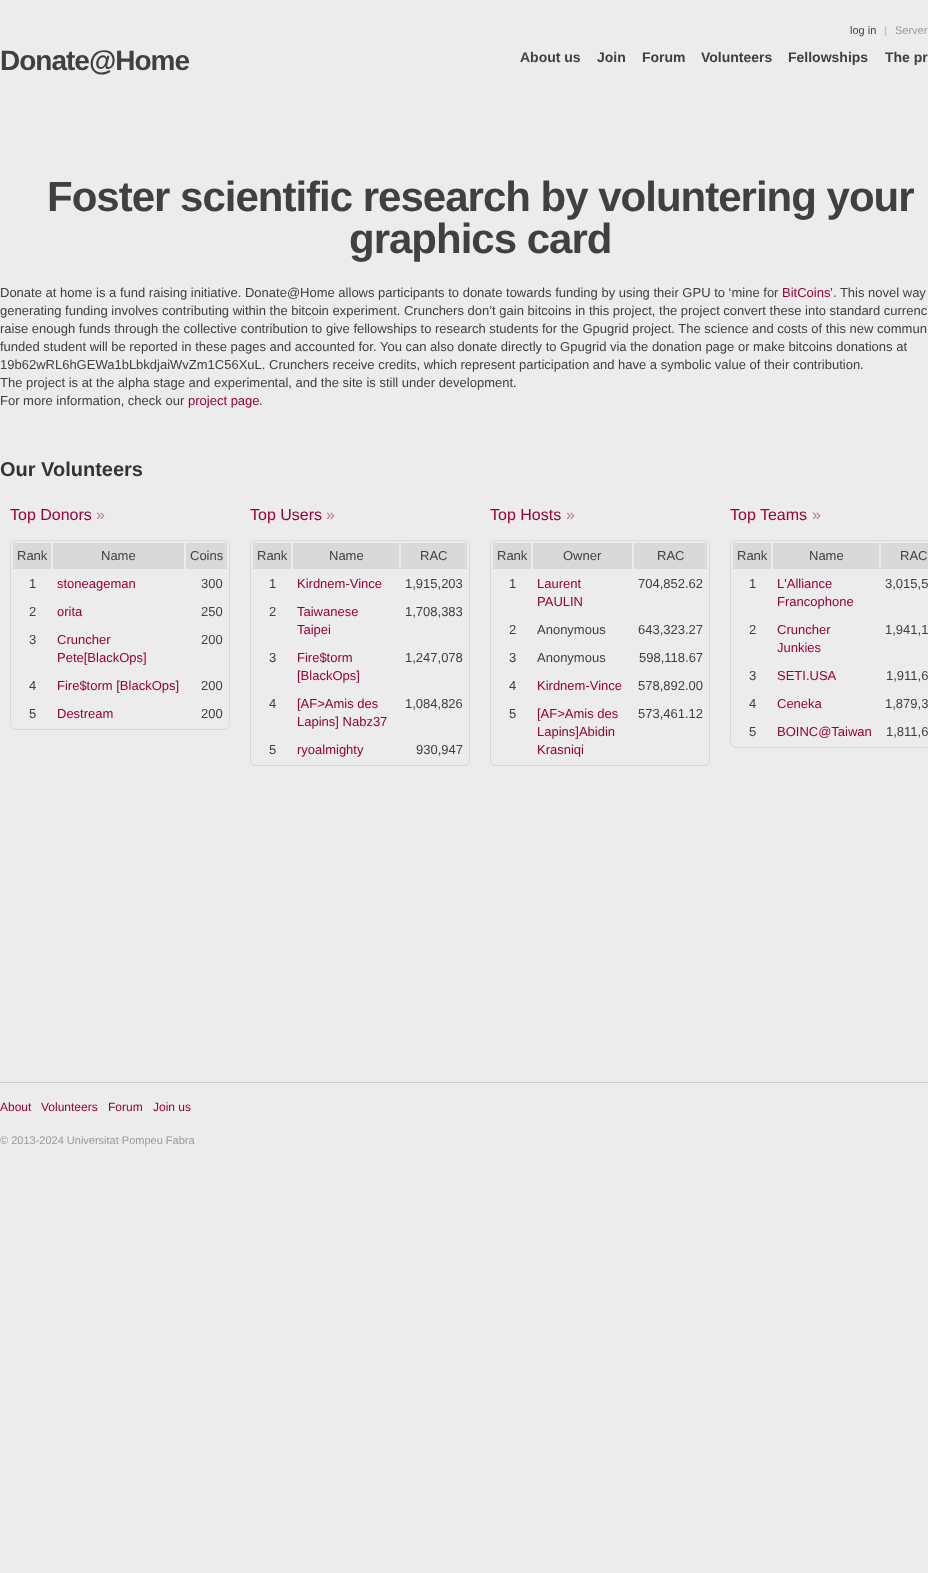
async function draw(canvas) {
  canvas.width = 928
  canvas.height = 1573
  const ctx = canvas.getContext('2d')
  ctx.miterLimit = 4
  ctx.fontKerning = 'normal'

  ctx.fillStyle = '#ececec'
  ctx.fillRect(0, 0, 928, 1573)
  ctx.letterSpacing = '-1px'
  ctx.font = 'bold 28px Liberation Sans'
  ctx.fillStyle = '#404040'
  ctx.fillText('Donate@Home', 0, 70)
  ctx.letterSpacing = '0px'
  ctx.font = '11px Liberation Sans'
  ctx.fillText('log in', 850, 34)
  ctx.font = 'bold 11px Liberation Sans'
  ctx.fillStyle = '#c3c3c3'
  ctx.fillText('|', 884, 34)
  ctx.font = '11px Liberation Sans'
  ctx.fillStyle = '#999'
  ctx.fillText('Server', 895, 34)
  ctx.font = 'bold 14px Liberation Sans'
  ctx.fillStyle = '#404040'
  ctx.fillText('About us', 520, 62)
  ctx.fillText('Join', 597, 62)
  ctx.fillText('Forum', 642, 62)
  ctx.fillText('Volunteers', 701, 62)
  ctx.fillText('Fellowships', 788, 62)
  ctx.fillText('The pr', 885, 62)
  ctx.letterSpacing = '-1px'
  ctx.font = 'bold 42px Liberation Sans'
  ctx.fillText('Foster scientific research by voluntering your', 47, 211)
  ctx.fillText('graphics card', 349, 253)
  ctx.letterSpacing = '0px'
  ctx.font = '13px Liberation Sans'
  ctx.fillText('Donate at home is a fund raising initiative. Donate@Home allows participants to donate towards funding by using their GPU to ‘mine for', 0, 297)
  ctx.fillStyle = '#903'
  ctx.fillText('BitCoins', 782, 297)
  ctx.fillStyle = '#404040'
  ctx.fillText('’. This novel way', 830, 297)
  ctx.fillText('generating funding involves contributing within the bitcoin experiment. Crunchers don’t gain bitcoins in this project, the project convert these into standard currenc', 0, 315)
  ctx.fillText('raise enough funds through the collective contribution to give fellowships to research students for the Gpugrid project. The science and costs of this new commun', 0, 333)
  ctx.fillText('funded student will be reported in these pages and accounted for. You can also donate directly to Gpugrid via the donation page or make bitcoins donations at', 0, 351)
  ctx.fillText('19b62wRL6hGEWa1bLbkdjaiWvZm1C56XuL. Crunchers receive credits, which represent participation and have a symbolic value of their contribution.', 0, 369)
  ctx.fillText('The project is at the alpha stage and experimental, and the site is still under development.', 0, 387)
  ctx.fillText('For more information, check our', 0, 405)
  ctx.fillStyle = '#903'
  ctx.fillText('project page', 188, 405)
  ctx.fillStyle = '#404040'
  ctx.fillText('.', 259, 405)
  ctx.font = 'bold 20px Liberation Sans'
  ctx.fillStyle = '#333'
  ctx.fillText('Our Volunteers', 0, 476)
  ctx.font = '16px Liberation Sans'
  ctx.fillStyle = '#903'
  ctx.fillText('Top Donors', 10, 520)
  ctx.fillStyle = '#c37690'
  ctx.fillText('»', 96, 520)
  ctx.beginPath()
  ctx.roundRect(10.5, 540.5, 219, 189, 5.5)
  ctx.strokeStyle = '#d9d9d9'
  ctx.stroke()
  ctx.fillStyle = '#d9d9d9'
  ctx.fillRect(13, 543, 38, 26)
  ctx.font = '13px Liberation Sans'
  ctx.fillStyle = '#404040'
  ctx.fillText('Rank', 17, 560)
  ctx.fillStyle = '#d9d9d9'
  ctx.fillRect(53, 543, 131, 26)
  ctx.fillStyle = '#404040'
  ctx.fillText('Name', 101, 560)
  ctx.fillStyle = '#d9d9d9'
  ctx.fillRect(186, 543, 41, 26)
  ctx.fillStyle = '#404040'
  ctx.fillText('Coins', 190, 560)
  ctx.fillText('1', 29, 588)
  ctx.fillStyle = '#903'
  ctx.fillText('stoneageman', 57, 588)
  ctx.fillStyle = '#404040'
  ctx.fillText('300', 201, 588)
  ctx.fillText('2', 29, 616)
  ctx.fillStyle = '#903'
  ctx.fillText('orita', 57, 616)
  ctx.fillStyle = '#404040'
  ctx.fillText('250', 201, 616)
  ctx.fillText('3', 29, 644)
  ctx.fillStyle = '#903'
  ctx.fillText('Cruncher', 57, 644)
  ctx.fillText('Pete[BlackOps]', 57, 662)
  ctx.fillStyle = '#404040'
  ctx.fillText('200', 201, 644)
  ctx.fillText('4', 29, 690)
  ctx.fillStyle = '#903'
  ctx.fillText('Fire$torm [BlackOps]', 57, 690)
  ctx.fillStyle = '#404040'
  ctx.fillText('200', 201, 690)
  ctx.fillText('5', 29, 718)
  ctx.fillStyle = '#903'
  ctx.fillText('Destream', 57, 718)
  ctx.fillStyle = '#404040'
  ctx.fillText('200', 201, 718)
  ctx.font = '16px Liberation Sans'
  ctx.fillStyle = '#903'
  ctx.fillText('Top Users', 250, 520)
  ctx.fillStyle = '#c37690'
  ctx.fillText('»', 326, 520)
  ctx.beginPath()
  ctx.roundRect(250.5, 540.5, 219, 225, 5.5)
  ctx.stroke()
  ctx.fillStyle = '#d9d9d9'
  ctx.fillRect(253, 543, 38, 26)
  ctx.font = '13px Liberation Sans'
  ctx.fillStyle = '#404040'
  ctx.fillText('Rank', 257, 560)
  ctx.fillStyle = '#d9d9d9'
  ctx.fillRect(293, 543, 106, 26)
  ctx.fillStyle = '#404040'
  ctx.fillText('Name', 329, 560)
  ctx.fillStyle = '#d9d9d9'
  ctx.fillRect(401, 543, 66, 26)
  ctx.fillStyle = '#404040'
  ctx.fillText('RAC', 420, 560)
  ctx.fillText('1', 269, 588)
  ctx.fillStyle = '#903'
  ctx.fillText('Kirdnem-Vince', 297, 588)
  ctx.fillStyle = '#404040'
  ctx.fillText('1,915,203', 405, 588)
  ctx.fillText('2', 269, 616)
  ctx.fillStyle = '#903'
  ctx.fillText('Taiwanese', 297, 616)
  ctx.fillText('Taipei', 297, 634)
  ctx.fillStyle = '#404040'
  ctx.fillText('1,708,383', 405, 616)
  ctx.fillText('3', 269, 662)
  ctx.fillStyle = '#903'
  ctx.fillText('Fire$torm', 297, 662)
  ctx.fillText('[BlackOps]', 297, 680)
  ctx.fillStyle = '#404040'
  ctx.fillText('1,247,078', 405, 662)
  ctx.fillText('4', 269, 708)
  ctx.fillStyle = '#903'
  ctx.fillText('[AF>Amis des', 297, 708)
  ctx.fillText('Lapins] Nabz37', 297, 726)
  ctx.fillStyle = '#404040'
  ctx.fillText('1,084,826', 405, 708)
  ctx.fillText('5', 269, 754)
  ctx.fillStyle = '#903'
  ctx.fillText('ryoalmighty', 297, 754)
  ctx.fillStyle = '#404040'
  ctx.fillText('930,947', 416, 754)
  ctx.font = '16px Liberation Sans'
  ctx.fillStyle = '#903'
  ctx.fillText('Top Hosts', 490, 520)
  ctx.fillStyle = '#c37690'
  ctx.fillText('»', 566, 520)
  ctx.beginPath()
  ctx.roundRect(490.5, 540.5, 219, 225, 5.5)
  ctx.stroke()
  ctx.fillStyle = '#d9d9d9'
  ctx.fillRect(493, 543, 38, 26)
  ctx.font = '13px Liberation Sans'
  ctx.fillStyle = '#404040'
  ctx.fillText('Rank', 497, 560)
  ctx.fillStyle = '#d9d9d9'
  ctx.fillRect(533, 543, 99, 26)
  ctx.fillStyle = '#404040'
  ctx.fillText('Owner', 563, 560)
  ctx.fillStyle = '#d9d9d9'
  ctx.fillRect(634, 543, 73, 26)
  ctx.fillStyle = '#404040'
  ctx.fillText('RAC', 657, 560)
  ctx.fillText('1', 509, 588)
  ctx.fillStyle = '#903'
  ctx.fillText('Laurent', 537, 588)
  ctx.fillText('PAULIN', 537, 606)
  ctx.fillStyle = '#404040'
  ctx.fillText('704,852.62', 638, 588)
  ctx.fillText('2', 509, 634)
  ctx.fillText('Anonymous', 537, 634)
  ctx.fillText('643,323.27', 638, 634)
  ctx.fillText('3', 509, 662)
  ctx.fillText('Anonymous', 537, 662)
  ctx.fillText('598,118.67', 639, 662)
  ctx.fillText('4', 509, 690)
  ctx.fillStyle = '#903'
  ctx.fillText('Kirdnem-Vince', 537, 690)
  ctx.fillStyle = '#404040'
  ctx.fillText('578,892.00', 638, 690)
  ctx.fillText('5', 509, 718)
  ctx.fillStyle = '#903'
  ctx.fillText('[AF>Amis des', 537, 718)
  ctx.fillText('Lapins]Abidin', 537, 736)
  ctx.fillText('Krasniqi', 537, 754)
  ctx.fillStyle = '#404040'
  ctx.fillText('573,461.12', 638, 718)
  ctx.font = '16px Liberation Sans'
  ctx.fillStyle = '#903'
  ctx.fillText('Top Teams', 730, 520)
  ctx.fillStyle = '#c37690'
  ctx.fillText('»', 812, 520)
  ctx.beginPath()
  ctx.roundRect(730.5, 540.5, 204, 207, 5.5)
  ctx.stroke()
  ctx.fillStyle = '#d9d9d9'
  ctx.fillRect(733, 543, 38, 26)
  ctx.font = '13px Liberation Sans'
  ctx.fillStyle = '#404040'
  ctx.fillText('Rank', 737, 560)
  ctx.fillStyle = '#d9d9d9'
  ctx.fillRect(773, 543, 106, 26)
  ctx.fillStyle = '#404040'
  ctx.fillText('Name', 809, 560)
  ctx.fillStyle = '#d9d9d9'
  ctx.fillRect(881, 543, 47, 26)
  ctx.fillStyle = '#404040'
  ctx.fillText('RAC', 900, 560)
  ctx.fillText('1', 749, 588)
  ctx.fillStyle = '#903'
  ctx.fillText('L\'Alliance', 777, 588)
  ctx.fillText('Francophone', 777, 606)
  ctx.fillStyle = '#404040'
  ctx.fillText('3,015,5', 885, 588)
  ctx.fillText('2', 749, 634)
  ctx.fillStyle = '#903'
  ctx.fillText('Cruncher', 777, 634)
  ctx.fillText('Junkies', 777, 652)
  ctx.fillStyle = '#404040'
  ctx.fillText('1,941,1', 885, 634)
  ctx.fillText('3', 749, 680)
  ctx.fillStyle = '#903'
  ctx.fillText('SETI.USA', 777, 680)
  ctx.fillStyle = '#404040'
  ctx.fillText('1,911,6', 886, 680)
  ctx.fillText('4', 749, 708)
  ctx.fillStyle = '#903'
  ctx.fillText('Ceneka', 777, 708)
  ctx.fillStyle = '#404040'
  ctx.fillText('1,879,3', 885, 708)
  ctx.fillText('5', 749, 736)
  ctx.fillStyle = '#903'
  ctx.fillText('BOINC@Taiwan', 777, 736)
  ctx.fillStyle = '#404040'
  ctx.fillText('1,811,6', 886, 736)
  ctx.fillStyle = '#ccc'
  ctx.fillRect(0, 1082, 928, 1)
  ctx.font = '12px Liberation Sans'
  ctx.fillStyle = '#903'
  ctx.fillText('About', 0, 1111)
  ctx.fillText('Volunteers', 41, 1111)
  ctx.fillText('Forum', 108, 1111)
  ctx.fillText('Join us', 153, 1111)
  ctx.font = '11px Liberation Sans'
  ctx.fillStyle = '#999'
  ctx.fillText('© 2013-2024 Universitat Pompeu Fabra', 0, 1144)
}

draw(document.querySelector('canvas'))
